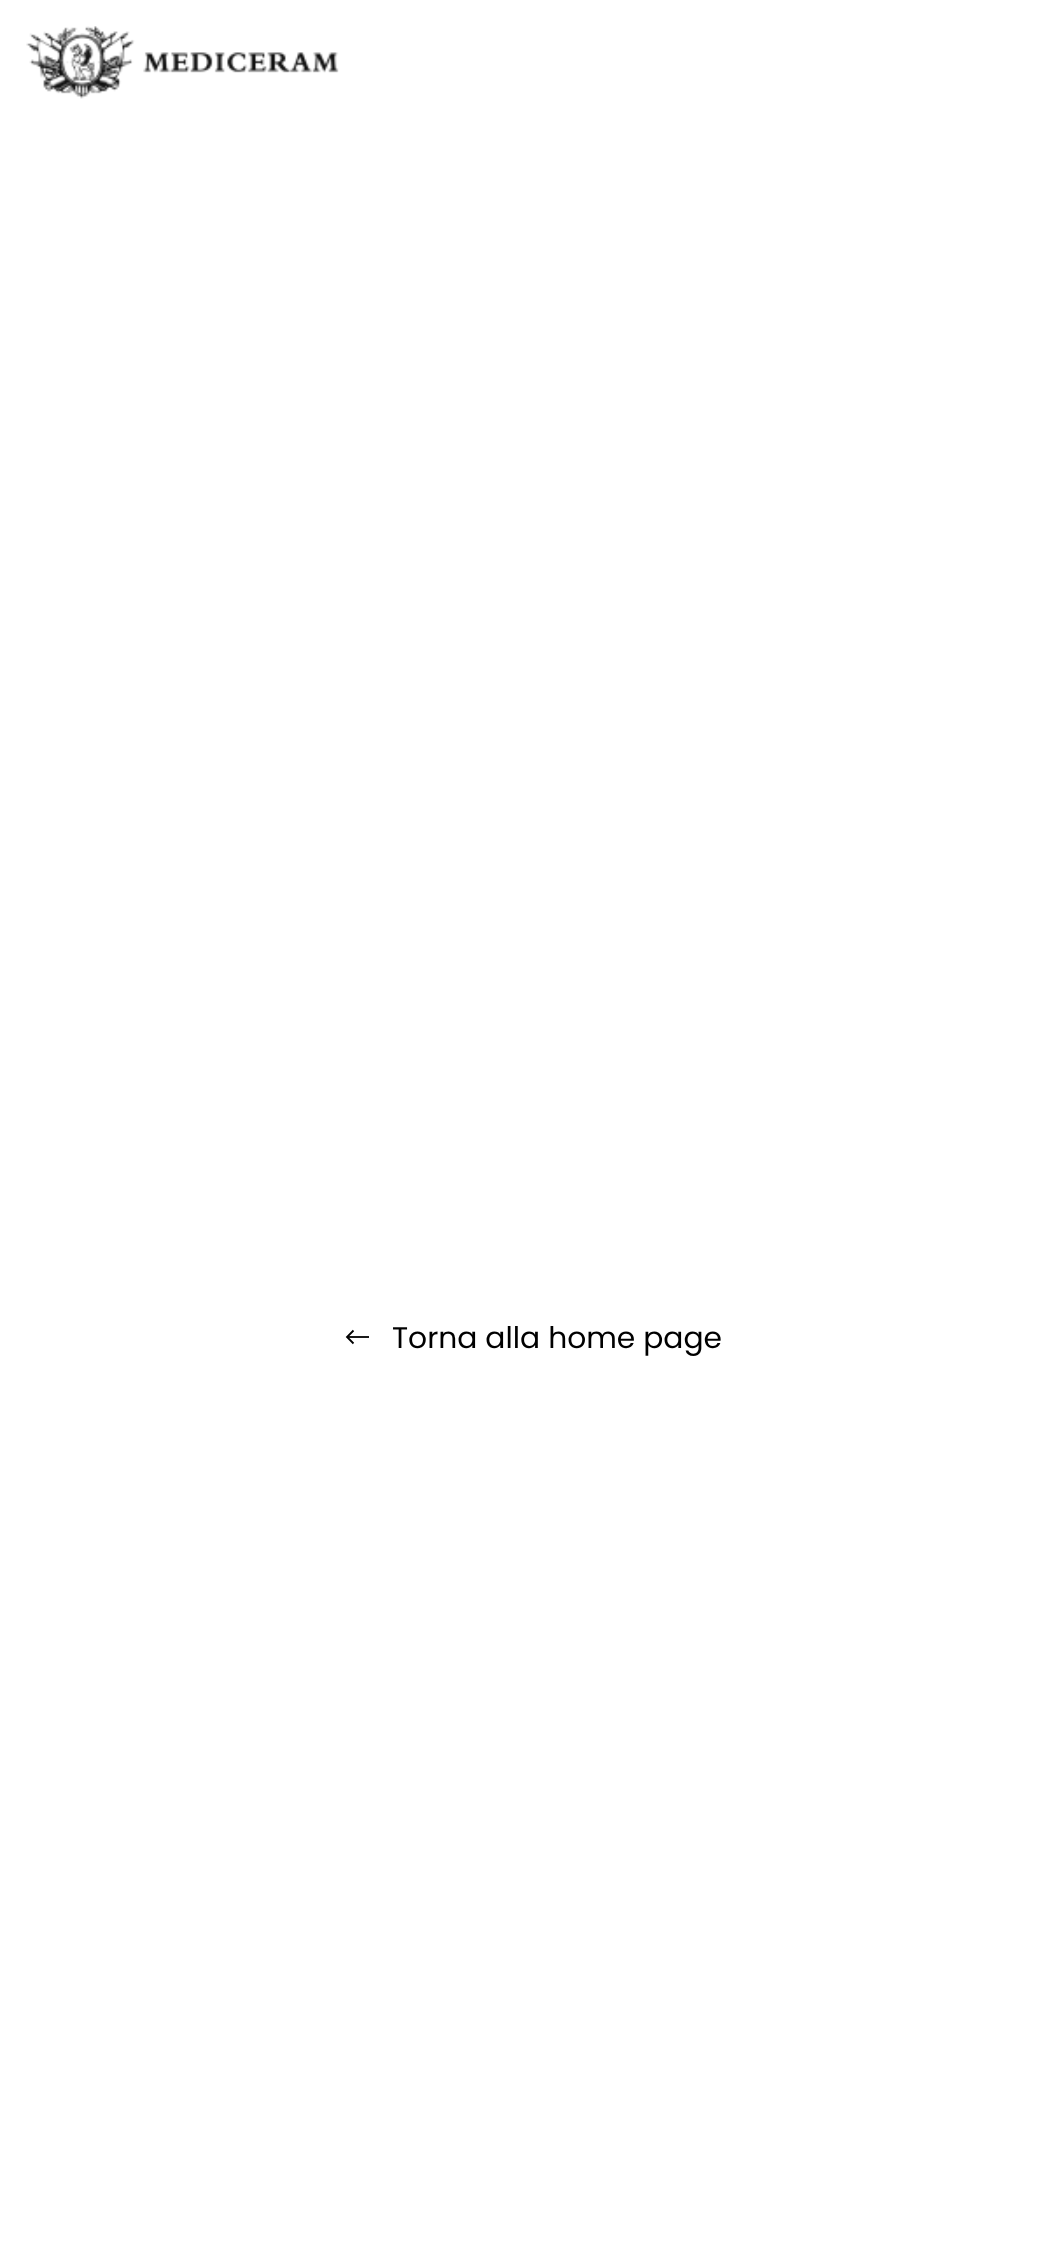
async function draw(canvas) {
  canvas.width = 1061
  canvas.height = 2249
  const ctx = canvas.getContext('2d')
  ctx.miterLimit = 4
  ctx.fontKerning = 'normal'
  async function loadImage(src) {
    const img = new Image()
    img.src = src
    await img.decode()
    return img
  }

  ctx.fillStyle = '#fff'
  ctx.fillRect(0, 0, 1061, 2249)
  ctx.drawImage(await loadImage('image0.png'), 26, 26, 313, 73)
  ctx.fillStyle = '#1a1a1a'
  ctx.fillRect(348, 1336, 21, 2)
  ctx.beginPath()
  ctx.moveTo(353.5, 1330.5)
  ctx.lineTo(347, 1337)
  ctx.lineTo(353.5, 1343.5)
  ctx.strokeStyle = '#000'
  ctx.lineWidth = 1.8
  ctx.stroke()
  ctx.font = '29.75px Poppins'
  ctx.fillStyle = '#000'
  ctx.fillText('Torna alla home page', 392, 1348)
}

draw(document.querySelector('canvas'))
